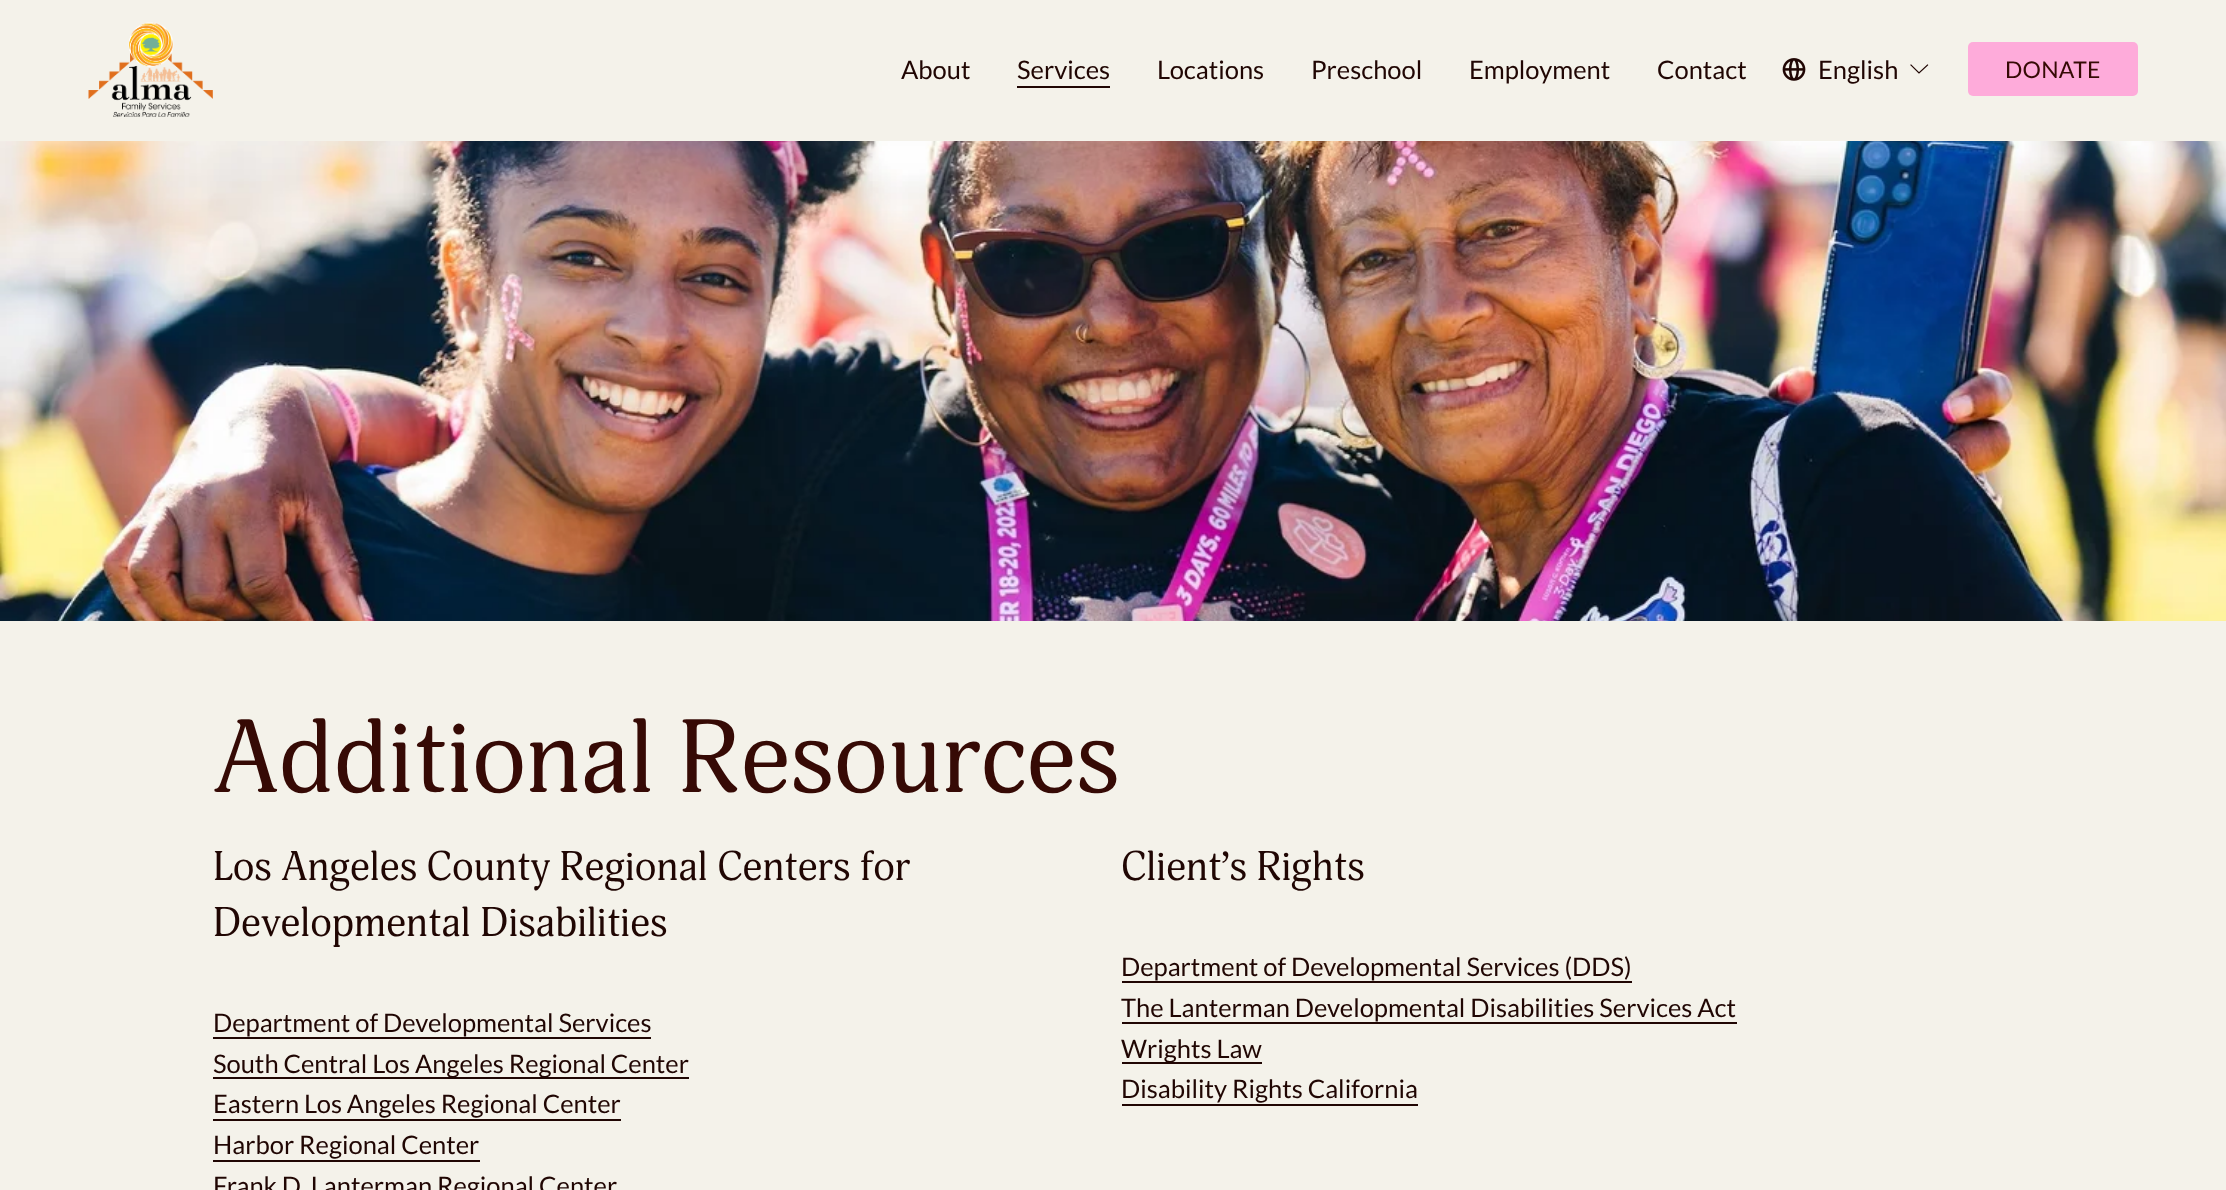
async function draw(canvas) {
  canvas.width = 2226
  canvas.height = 1190
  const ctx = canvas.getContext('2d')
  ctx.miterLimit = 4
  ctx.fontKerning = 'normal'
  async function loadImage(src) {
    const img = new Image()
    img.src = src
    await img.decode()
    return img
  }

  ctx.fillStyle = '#f4f2ea'
  ctx.fillRect(0, 0, 2226, 1190)
  ctx.drawImage(await loadImage('image0.png'), 88, 22, 125, 95)
  ctx.font = '25.5px Lato'
  ctx.fillStyle = '#200603'
  ctx.fillText('About', 901, 79)
  ctx.fillRect(1017, 86, 93, 2)
  ctx.fillText('Services', 1017, 79)
  ctx.fillText('Locations', 1157, 79)
  ctx.fillText('Preschool', 1311, 79)
  ctx.fillText('Employment', 1469, 79)
  ctx.fillText('Contact', 1657, 79)
  ctx.drawImage(await loadImage('image1.png'), 1782, 58, 24, 23)
  ctx.fillText('English', 1818, 79)
  ctx.beginPath()
  ctx.moveTo(1927.5, 65)
  ctx.lineTo(1919, 73)
  ctx.lineTo(1911, 65)
  ctx.strokeStyle = '#200603'
  ctx.lineWidth = 1.2
  ctx.lineCap = 'square'
  ctx.stroke()
  ctx.fillStyle = '#feabda'
  ctx.beginPath()
  ctx.roundRect(1968, 42, 170, 54, 5)
  ctx.fill()
  ctx.letterSpacing = '0.25px'
  ctx.font = '23px Lato'
  ctx.fillStyle = '#360a05'
  ctx.fillText('DONATE', 2005, 78)
  ctx.drawImage(await loadImage('image2.png'), 0, 141, 2226, 480)
  ctx.letterSpacing = '0px'
  ctx.font = '102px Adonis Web'
  ctx.fillText('Additional Resources', 213, 792)
  ctx.font = '40.75px Adonis Web'
  ctx.fillStyle = '#200603'
  ctx.fillText('Los Angeles County Regional Centers for', 213, 880)
  ctx.fillText('Developmental Disabilities', 213, 936)
  ctx.font = '25.5px Lato'
  ctx.fillText('Department of Developmental Services', 213, 1032)
  ctx.fillRect(213, 1037, 438, 2)
  ctx.fillRect(213, 1077, 476, 2)
  ctx.fillText('South Central Los Angeles Regional Center', 213, 1073)
  ctx.fillText('Eastern Los Angeles Regional Center', 213, 1113)
  ctx.fillRect(213, 1119, 408, 2)
  ctx.fillText('Harbor Regional Center', 213, 1154)
  ctx.fillRect(213, 1160, 267, 2)
  ctx.fillText('Frank D. Lanterman Regional Center', 213, 1195)
  ctx.font = '40.75px Adonis Web'
  ctx.fillText('Client’s Rights', 1121, 880)
  ctx.font = '25.5px Lato'
  ctx.fillText('Department of Developmental Services (DDS)', 1121, 976)
  ctx.fillRect(1122, 981, 510, 2)
  ctx.fillText('The Lanterman Developmental Disabilities Services Act', 1121, 1017)
  ctx.fillRect(1122, 1022, 615, 2)
  ctx.fillRect(1122, 1062, 140, 2)
  ctx.fillText('Wrights Law', 1121, 1058)
  ctx.fillText('Disability Rights California', 1121, 1098)
  ctx.fillRect(1122, 1104, 296, 2)
}

draw(document.querySelector('canvas'))
